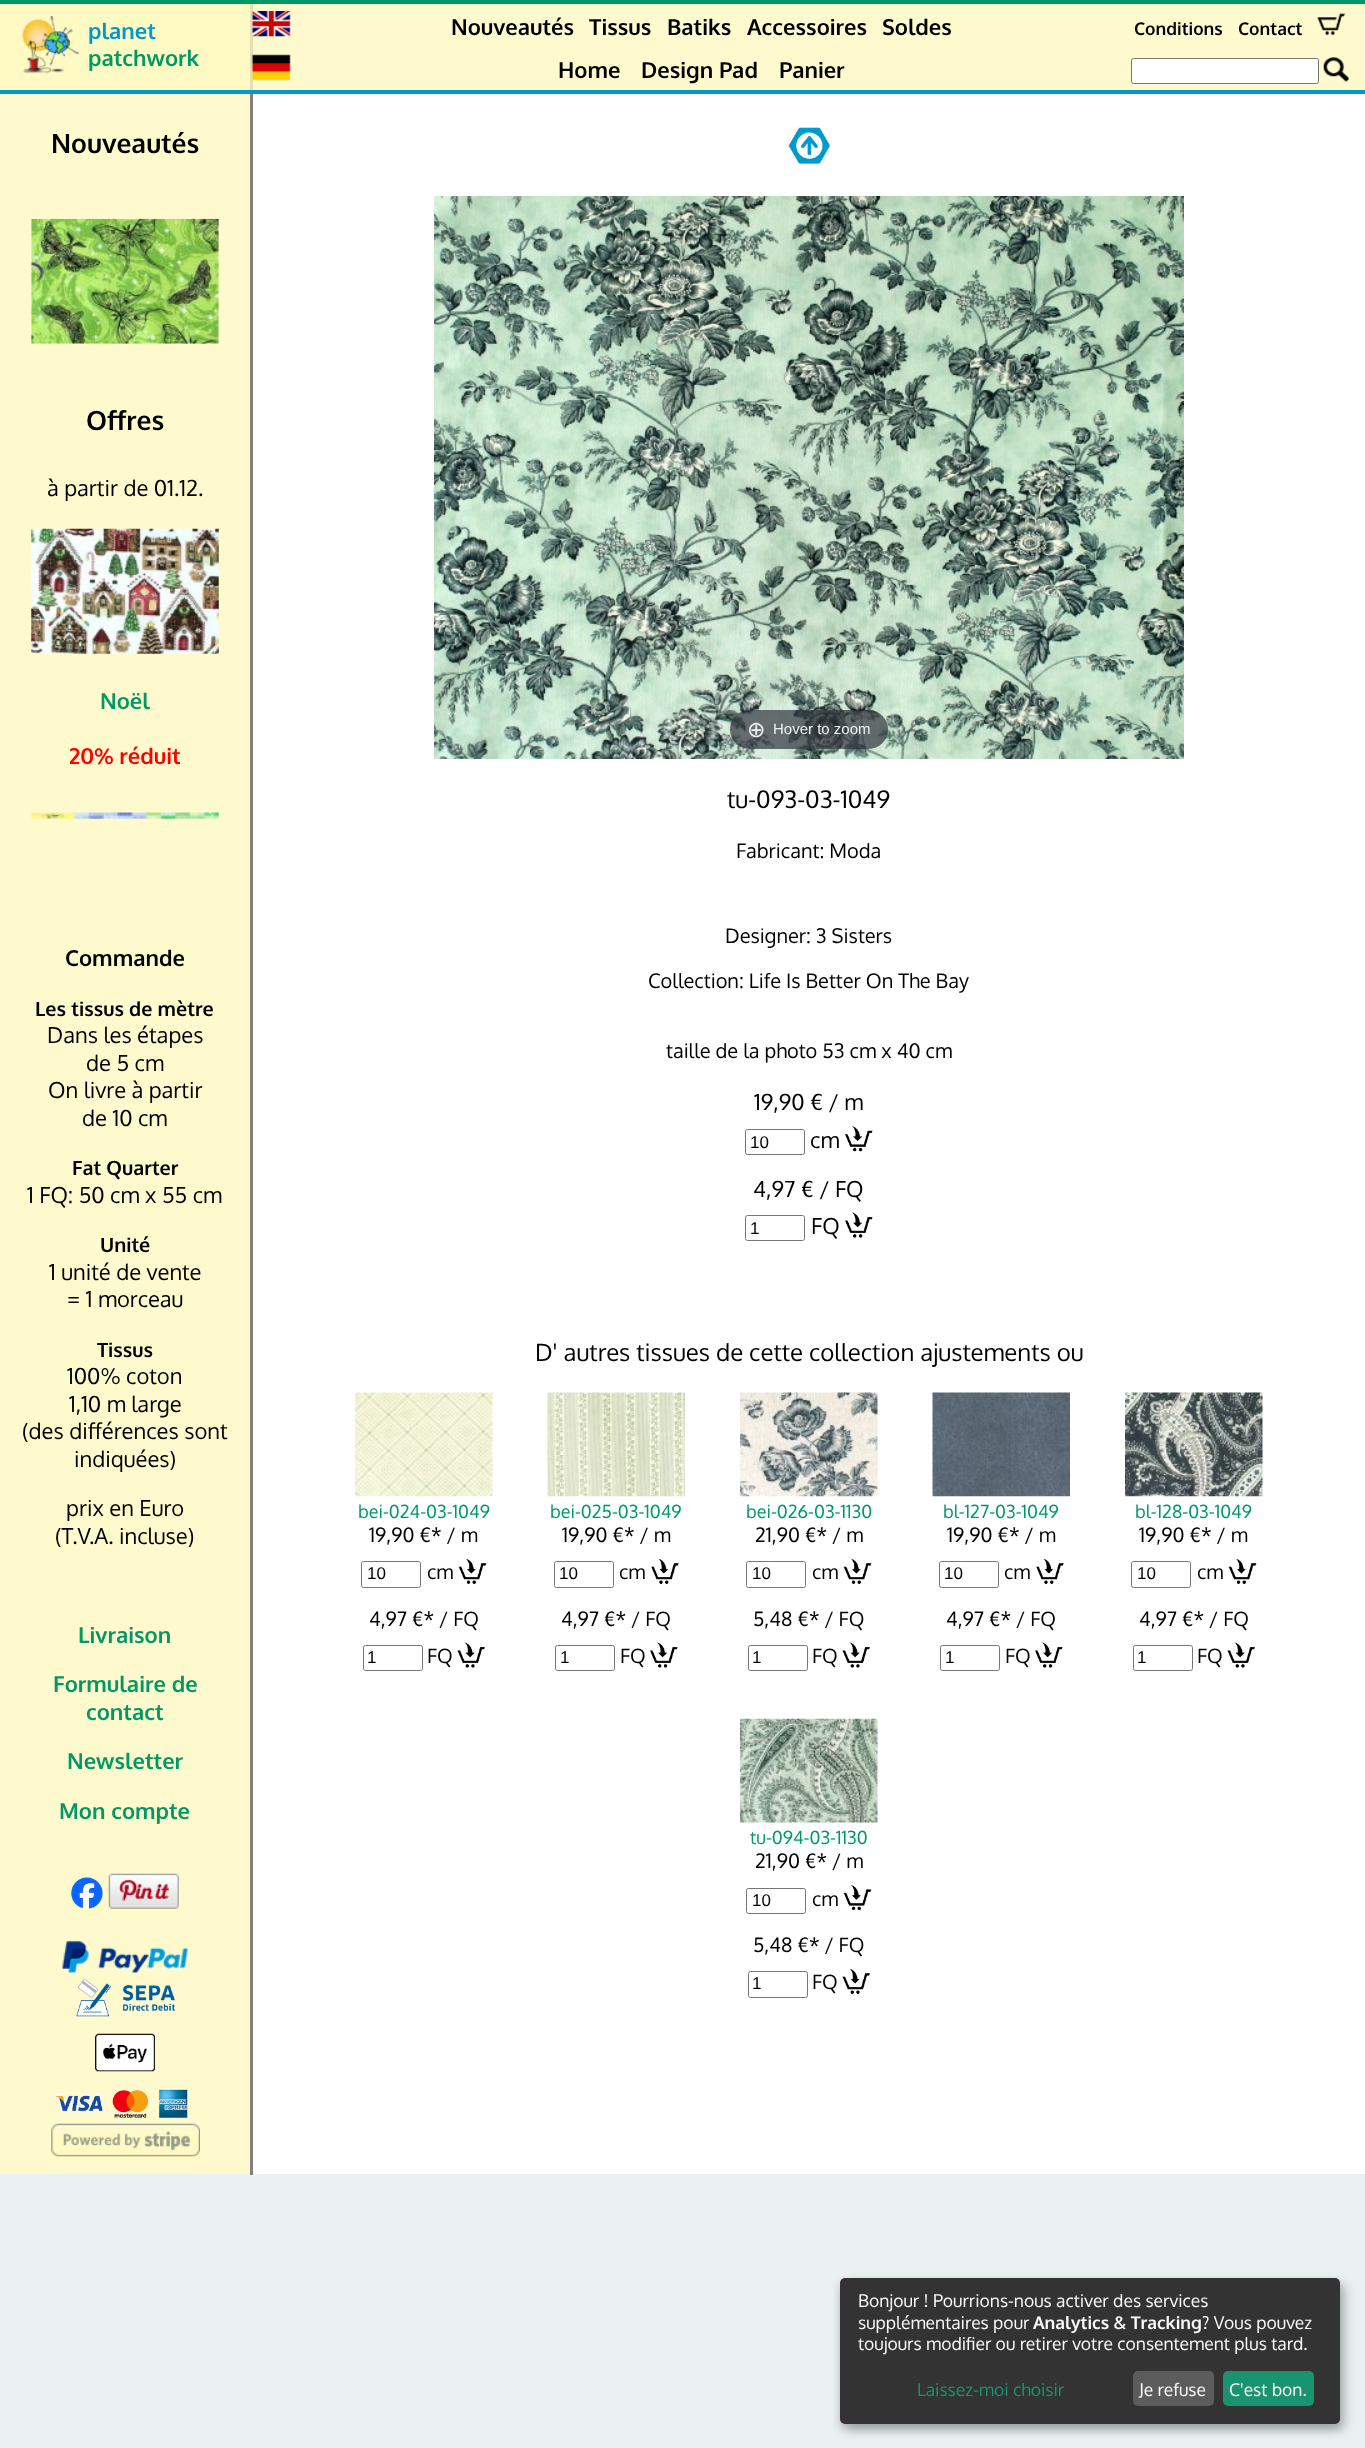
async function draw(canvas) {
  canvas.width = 1365
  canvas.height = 2448
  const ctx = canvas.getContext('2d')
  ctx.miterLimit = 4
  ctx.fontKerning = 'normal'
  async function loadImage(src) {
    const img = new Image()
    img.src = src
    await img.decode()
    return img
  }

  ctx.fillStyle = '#ebf0f0'
  ctx.fillRect(0, 0, 1365, 2448)
  ctx.fillStyle = '#fff'
  ctx.fillRect(253, 94, 1112, 2080)
  ctx.fillStyle = '#ffface'
  ctx.fillRect(253, 4, 1112, 86)
  ctx.fillStyle = '#e6e1b5'
  ctx.fillRect(250, 0, 3, 94)
  ctx.fillStyle = '#096'
  ctx.fillRect(0, 0, 1365, 4)
  ctx.fillStyle = '#09c'
  ctx.fillRect(0, 90, 1365, 4)
  ctx.fillStyle = '#fff9c4'
  ctx.fillRect(0, 4, 250, 86)
  ctx.drawImage(await loadImage('image0.png'), 21, 16, 58, 58)
  ctx.font = 'bold 22px Oxygen'
  ctx.fillStyle = '#09c'
  ctx.fillText('planet', 88, 39)
  ctx.fillStyle = '#096'
  ctx.fillText('patchwork', 88, 66)
  ctx.drawImage(await loadImage('image1.png'), 251, 11, 40, 26)
  ctx.fillStyle = '#000'
  ctx.fillText('Nouveautés', 451, 35)
  ctx.fillText('Tissus', 589, 35)
  ctx.fillText('Batiks', 667, 35)
  ctx.fillText('Accessoires', 747, 35)
  ctx.fillText('Soldes', 882, 35)
  ctx.font = 'bold 17.5px Oxygen'
  ctx.fillText('Conditions', 1134, 35)
  ctx.fillText('Contact', 1238, 35)
  ctx.drawImage(await loadImage('image2.png'), 1316, 13, 30, 23)
  ctx.drawImage(await loadImage('image3.png'), 251, 54, 40, 27)
  ctx.font = 'bold 22px Oxygen'
  ctx.fillText('Home', 558, 78)
  ctx.fillText('Design Pad', 641, 78)
  ctx.fillText('Panier', 779, 78)
  ctx.fillStyle = '#fff'
  ctx.beginPath()
  ctx.roundRect(1131.5, 58.5, 187, 25, 2)
  ctx.fill()
  ctx.strokeStyle = '#767676'
  ctx.stroke()
  ctx.drawImage(await loadImage('image4.png'), 1323, 57, 26, 26)
  ctx.fillStyle = '#ffface'
  ctx.fillRect(0, 94, 250, 2080)
  ctx.fillStyle = '#808080'
  ctx.fillRect(250, 94, 3, 2081)
  ctx.font = 'bold 26.5px Oxygen'
  ctx.fillStyle = '#000'
  ctx.fillText('Nouveautés', 51, 153)
  ctx.drawImage(await loadImage('image5.png'), 31, 218, 188, 126)
  ctx.fillText('Offres', 86, 430)
  ctx.font = '22px Oxygen'
  ctx.fillText('à partir de 01.12.', 47, 496)
  ctx.drawImage(await loadImage('image6.png'), 31, 528, 188, 126)
  ctx.font = 'bold 22px Oxygen'
  ctx.fillStyle = '#096'
  ctx.fillText('Noël', 100, 709)
  ctx.fillStyle = '#f00'
  ctx.fillText('20% réduit', 69, 764)
  ctx.drawImage(await loadImage('image7.png'), 31, 812, 188, 7)
  ctx.fillStyle = '#000'
  ctx.fillText('Commande', 65, 966)
  ctx.font = 'bold 19.75px Oxygen'
  ctx.fillText('Les tissus de mètre', 35, 1016)
  ctx.font = '22px Oxygen'
  ctx.fillText('Dans les étapes', 47, 1043)
  ctx.fillText('de 5 cm', 86, 1071)
  ctx.fillText('On livre à partir', 48, 1098)
  ctx.fillText('de 10 cm', 82, 1126)
  ctx.font = 'bold 19.75px Oxygen'
  ctx.fillText('Fat Quarter', 72, 1175)
  ctx.font = '22px Oxygen'
  ctx.fillText('1 FQ: 50 cm x 55 cm', 27, 1203)
  ctx.font = 'bold 19.75px Oxygen'
  ctx.fillText('Unité', 100, 1252)
  ctx.font = '22px Oxygen'
  ctx.fillText('1 unité de vente', 49, 1280)
  ctx.fillText('= 1 morceau', 67, 1307)
  ctx.font = 'bold 19.75px Oxygen'
  ctx.fillText('Tissus', 97, 1357)
  ctx.font = '22px Oxygen'
  ctx.fillText('100% coton', 67, 1384)
  ctx.fillText('1,10 m large', 69, 1412)
  ctx.fillText('(des différences sont', 22, 1439)
  ctx.fillText('indiquées)', 74, 1467)
  ctx.fillText('prix en Euro', 66, 1516)
  ctx.fillText('(T.V.A. incluse)', 55, 1544)
  ctx.font = 'bold 22px Oxygen'
  ctx.fillStyle = '#096'
  ctx.fillText('Livraison', 78, 1643)
  ctx.fillText('Formulaire de', 53, 1692)
  ctx.fillText('contact', 86, 1720)
  ctx.fillText('Newsletter', 67, 1769)
  ctx.fillText('Mon compte', 59, 1819)
  ctx.fillStyle = '#fff9c4'
  ctx.fillRect(71, 1886, 32, 28)
  ctx.drawImage(await loadImage('image8.png'), 71, 1877, 32, 32)
  ctx.fillRect(109, 1886, 70, 28)
  ctx.drawImage(await loadImage('image9.png'), 108, 1873, 71, 36)
  ctx.drawImage(await loadImage('image10.png'), 62, 1941, 126, 32)
  ctx.drawImage(await loadImage('image11.png'), 76, 1978, 99, 39)
  ctx.drawImage(await loadImage('image12.png'), 95, 2033, 60, 39)
  ctx.drawImage(await loadImage('image13.png'), 55, 2089, 133, 29)
  ctx.fillRect(51, 2134, 149, 27)
  ctx.drawImage(await loadImage('image14.png'), 51, 2123, 149, 34)
  ctx.drawImage(await loadImage('image15.png'), 788, 127, 42, 37)
  ctx.drawImage(await loadImage('image16.png'), 434, 196, 750, 563)
  ctx.fillStyle = '#31333db3'
  ctx.beginPath()
  ctx.roundRect(730, 710, 158, 39, 19.5)
  ctx.fill()
  ctx.font = '22px DejaVu Sans'
  ctx.fillStyle = '#eee'
  ctx.fillText('⊕', 747, 737)
  ctx.font = '15px Liberation Sans'
  ctx.fillText('Hover to zoom', 773, 734)
  ctx.font = '24px Oxygen'
  ctx.fillStyle = '#000'
  ctx.fillText('tu-093-03-1049', 727, 808)
  ctx.font = '20px Oxygen'
  ctx.fillText('Fabricant: Moda', 736, 858)
  ctx.fillText('Designer: 3 Sisters', 725, 943)
  ctx.fillText('Collection: Life Is Better On The Bay', 648, 988)
  ctx.fillText('taille de la photo 53 cm x 40 cm', 666, 1058)
  ctx.font = '22px Oxygen'
  ctx.fillText('19,90 € / m', 754, 1110)
  ctx.beginPath()
  ctx.roundRect(745.5, 1129.5, 59, 25, 2)
  ctx.stroke()
  ctx.font = '17px Liberation Sans'
  ctx.fillText('10', 750, 1148)
  ctx.font = '22px Oxygen'
  ctx.fillText('cm', 810, 1148)
  ctx.drawImage(await loadImage('image17.png'), 845, 1126, 28, 26)
  ctx.fillText('4,97 € / FQ', 753, 1197)
  ctx.beginPath()
  ctx.roundRect(745.5, 1215.5, 59, 25, 2)
  ctx.stroke()
  ctx.font = '17px Liberation Sans'
  ctx.fillText('1', 750, 1234)
  ctx.font = '22px Oxygen'
  ctx.fillText('FQ', 811, 1234)
  ctx.drawImage(await loadImage('image18.png'), 845, 1212, 28, 26)
  ctx.font = '24px Oxygen'
  ctx.fillText('D\' autres tissues de cette collection ajustements ou', 535, 1361)
  ctx.drawImage(await loadImage('image19.png'), 355, 1392, 138, 105)
  ctx.font = '18px Oxygen'
  ctx.fillStyle = '#096'
  ctx.fillText('bei-024-03-1049', 358, 1518)
  ctx.font = '19.75px Oxygen'
  ctx.fillStyle = '#000'
  ctx.fillText('19,90 €* / m', 369, 1542)
  ctx.beginPath()
  ctx.roundRect(361.5, 1561.5, 59, 26, 2)
  ctx.stroke()
  ctx.font = '17px Liberation Sans'
  ctx.fillText('10', 367, 1579)
  ctx.font = '19.75px Oxygen'
  ctx.fillText('cm', 427, 1579)
  ctx.drawImage(await loadImage('image20.png'), 458, 1558, 29, 27)
  ctx.fillText('4,97 €* / FQ', 369, 1626)
  ctx.beginPath()
  ctx.roundRect(363.5, 1645.5, 59, 25, 2)
  ctx.stroke()
  ctx.font = '17px Liberation Sans'
  ctx.fillText('1', 367, 1663)
  ctx.font = '19.75px Oxygen'
  ctx.fillText('FQ', 427, 1663)
  ctx.drawImage(await loadImage('image21.png'), 457, 1642, 28, 26)
  ctx.drawImage(await loadImage('image22.png'), 547, 1392, 138, 105)
  ctx.font = '18px Oxygen'
  ctx.fillStyle = '#096'
  ctx.fillText('bei-025-03-1049', 550, 1518)
  ctx.font = '19.75px Oxygen'
  ctx.fillStyle = '#000'
  ctx.fillText('19,90 €* / m', 562, 1542)
  ctx.beginPath()
  ctx.roundRect(554.5, 1561.5, 59, 26, 2)
  ctx.stroke()
  ctx.font = '17px Liberation Sans'
  ctx.fillText('10', 559, 1579)
  ctx.font = '19.75px Oxygen'
  ctx.fillText('cm', 619, 1579)
  ctx.drawImage(await loadImage('image23.png'), 651, 1558, 28, 27)
  ctx.fillText('4,97 €* / FQ', 561, 1626)
  ctx.beginPath()
  ctx.roundRect(555.5, 1645.5, 59, 25, 2)
  ctx.stroke()
  ctx.font = '17px Liberation Sans'
  ctx.fillText('1', 560, 1663)
  ctx.font = '19.75px Oxygen'
  ctx.fillText('FQ', 620, 1663)
  ctx.drawImage(await loadImage('image18.png'), 650, 1642, 28, 26)
  ctx.drawImage(await loadImage('image24.png'), 740, 1392, 138, 105)
  ctx.font = '18px Oxygen'
  ctx.fillStyle = '#096'
  ctx.fillText('bei-026-03-1130', 746, 1518)
  ctx.font = '19.75px Oxygen'
  ctx.fillStyle = '#000'
  ctx.fillText('21,90 €* / m', 755, 1542)
  ctx.beginPath()
  ctx.roundRect(746.5, 1561.5, 59, 26, 2)
  ctx.stroke()
  ctx.font = '17px Liberation Sans'
  ctx.fillText('10', 752, 1579)
  ctx.font = '19.75px Oxygen'
  ctx.fillText('cm', 812, 1579)
  ctx.drawImage(await loadImage('image25.png'), 843, 1558, 29, 27)
  ctx.fillText('5,48 €* / FQ', 753, 1626)
  ctx.beginPath()
  ctx.roundRect(748.5, 1645.5, 59, 25, 2)
  ctx.stroke()
  ctx.font = '17px Liberation Sans'
  ctx.fillText('1', 752, 1663)
  ctx.font = '19.75px Oxygen'
  ctx.fillText('FQ', 812, 1663)
  ctx.drawImage(await loadImage('image21.png'), 842, 1642, 28, 26)
  ctx.drawImage(await loadImage('image26.png'), 932, 1392, 138, 105)
  ctx.font = '18px Oxygen'
  ctx.fillStyle = '#096'
  ctx.fillText('bl-127-03-1049', 943, 1518)
  ctx.font = '19.75px Oxygen'
  ctx.fillStyle = '#000'
  ctx.fillText('19,90 €* / m', 947, 1542)
  ctx.beginPath()
  ctx.roundRect(939.5, 1561.5, 59, 26, 2)
  ctx.stroke()
  ctx.font = '17px Liberation Sans'
  ctx.fillText('10', 944, 1579)
  ctx.font = '19.75px Oxygen'
  ctx.fillText('cm', 1004, 1579)
  ctx.drawImage(await loadImage('image23.png'), 1036, 1558, 28, 27)
  ctx.fillText('4,97 €* / FQ', 946, 1626)
  ctx.beginPath()
  ctx.roundRect(940.5, 1645.5, 59, 25, 2)
  ctx.stroke()
  ctx.font = '17px Liberation Sans'
  ctx.fillText('1', 945, 1663)
  ctx.font = '19.75px Oxygen'
  ctx.fillText('FQ', 1005, 1663)
  ctx.drawImage(await loadImage('image18.png'), 1035, 1642, 28, 26)
  ctx.drawImage(await loadImage('image27.png'), 1125, 1392, 138, 105)
  ctx.font = '18px Oxygen'
  ctx.fillStyle = '#096'
  ctx.fillText('bl-128-03-1049', 1135, 1518)
  ctx.font = '19.75px Oxygen'
  ctx.fillStyle = '#000'
  ctx.fillText('19,90 €* / m', 1139, 1542)
  ctx.beginPath()
  ctx.roundRect(1131.5, 1561.5, 59, 26, 2)
  ctx.stroke()
  ctx.font = '17px Liberation Sans'
  ctx.fillText('10', 1137, 1579)
  ctx.font = '19.75px Oxygen'
  ctx.fillText('cm', 1197, 1579)
  ctx.drawImage(await loadImage('image20.png'), 1228, 1558, 29, 27)
  ctx.fillText('4,97 €* / FQ', 1139, 1626)
  ctx.beginPath()
  ctx.roundRect(1133.5, 1645.5, 59, 25, 2)
  ctx.stroke()
  ctx.font = '17px Liberation Sans'
  ctx.fillText('1', 1137, 1663)
  ctx.font = '19.75px Oxygen'
  ctx.fillText('FQ', 1197, 1663)
  ctx.drawImage(await loadImage('image21.png'), 1227, 1642, 28, 26)
  ctx.drawImage(await loadImage('image28.png'), 740, 1718, 138, 105)
  ctx.font = '18px Oxygen'
  ctx.fillStyle = '#096'
  ctx.fillText('tu-094-03-1130', 750, 1844)
  ctx.font = '19.75px Oxygen'
  ctx.fillStyle = '#000'
  ctx.fillText('21,90 €* / m', 755, 1868)
  ctx.beginPath()
  ctx.roundRect(746.5, 1888.5, 59, 25, 2)
  ctx.stroke()
  ctx.font = '17px Liberation Sans'
  ctx.fillText('10', 752, 1906)
  ctx.font = '19.75px Oxygen'
  ctx.fillText('cm', 812, 1906)
  ctx.drawImage(await loadImage('image29.png'), 843, 1885, 29, 26)
  ctx.fillText('5,48 €* / FQ', 753, 1952)
  ctx.beginPath()
  ctx.roundRect(748.5, 1971.5, 59, 26, 2)
  ctx.stroke()
  ctx.font = '17px Liberation Sans'
  ctx.fillText('1', 752, 1989)
  ctx.font = '19.75px Oxygen'
  ctx.fillText('FQ', 812, 1989)
  ctx.drawImage(await loadImage('image30.png'), 842, 1968, 28, 26)
  ctx.fillStyle = '#00000030'
  ctx.filter = 'blur(6px)'
  ctx.beginPath()
  ctx.roundRect(846, 2284, 500, 146, 5)
  ctx.fill()
  ctx.filter = 'none'
  ctx.fillStyle = '#00000033'
  ctx.filter = 'blur(4px)'
  ctx.beginPath()
  ctx.roundRect(840, 2283, 500, 146, 5)
  ctx.fill()
  ctx.filter = 'none'
  ctx.fillStyle = '#333'
  ctx.beginPath()
  ctx.roundRect(840, 2278, 500, 146, 5)
  ctx.fill()
  ctx.font = '17.5px Oxygen'
  ctx.fillStyle = '#fafafa'
  ctx.fillText('Bonjour ! Pourrions-nous activer des services', 858, 2307)
  ctx.fillText('supplémentaires pour', 858, 2329)
  ctx.font = 'bold 17.5px Oxygen'
  ctx.fillText('Analytics & Tracking', 1033, 2329)
  ctx.font = '17.5px Oxygen'
  ctx.fillText('? Vous pouvez', 1202, 2329)
  ctx.fillText('toujours modifier ou retirer votre consentement plus tard.', 858, 2350)
  ctx.fillStyle = '#1a936f'
  ctx.fillText('Laissez-moi choisir', 917, 2396)
  ctx.fillStyle = '#5c5c5c'
  ctx.beginPath()
  ctx.roundRect(1133, 2371, 81, 35, 5)
  ctx.fill()
  ctx.fillStyle = '#fafafa'
  ctx.fillText('Je refuse', 1139, 2396)
  ctx.fillStyle = '#1a936f'
  ctx.beginPath()
  ctx.roundRect(1223, 2371, 91, 35, 5)
  ctx.fill()
  ctx.fillStyle = '#fafafa'
  ctx.fillText('C\'est bon.', 1229, 2396)
}

draw(document.querySelector('canvas'))
